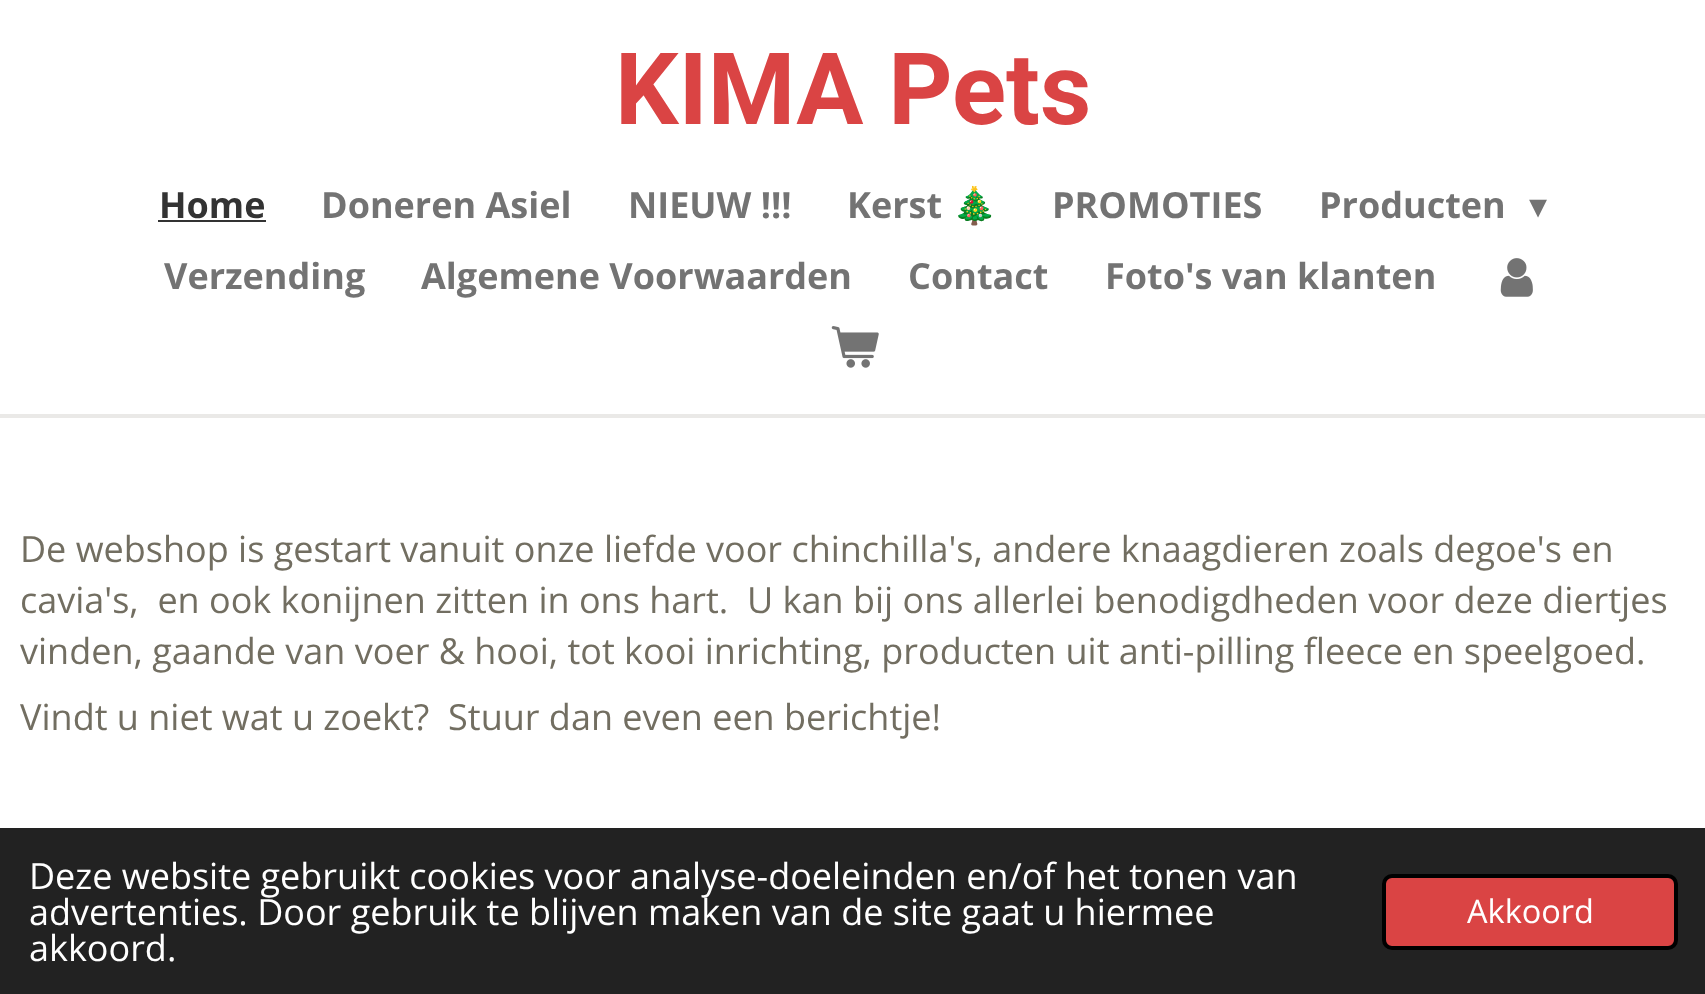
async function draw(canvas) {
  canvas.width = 1705
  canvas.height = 994
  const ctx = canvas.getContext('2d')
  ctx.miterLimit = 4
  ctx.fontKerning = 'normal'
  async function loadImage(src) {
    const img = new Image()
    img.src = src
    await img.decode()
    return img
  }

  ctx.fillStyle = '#fff'
  ctx.fillRect(0, 0, 1705, 994)
  ctx.font = 'bold 100px Roboto'
  ctx.fillStyle = '#da4444'
  ctx.fillText('KIMA Pets', 615, 124)
  ctx.font = 'bold 36px Open Sans'
  ctx.fillStyle = '#333'
  ctx.fillText('Home', 159, 218)
  ctx.fillRect(158, 220, 108, 2)
  ctx.fillStyle = '#737373'
  ctx.fillText('Doneren Asiel', 321, 218)
  ctx.fillText('NIEUW !!!', 628, 218)
  ctx.fillText('Kerst', 847, 218)
  ctx.font = 'bold 36px Noto Color Emoji'
  ctx.fillText('🎄', 952, 218)
  ctx.font = 'bold 36px Open Sans'
  ctx.fillText('PROMOTIES', 1052, 218)
  ctx.fillText('Producten', 1319, 218)
  ctx.font = '36px DejaVu Sans'
  ctx.fillText('▾', 1529, 218)
  ctx.font = 'bold 36px Open Sans'
  ctx.fillText('Verzending', 164, 289)
  ctx.fillText('Algemene Voorwaarden', 421, 289)
  ctx.fillText('Contact', 908, 289)
  ctx.fillText('Foto\'s van klanten', 1105, 289)
  ctx.drawImage(await loadImage('image0.png'), 1500, 258, 33, 39)
  ctx.drawImage(await loadImage('image1.png'), 831, 326, 48, 42)
  ctx.fillStyle = '#eae9e7'
  ctx.fillRect(0, 414, 1705, 4)
  ctx.font = '36px Open Sans'
  ctx.fillStyle = '#726e61'
  ctx.fillText('De webshop is gestart vanuit onze liefde voor chinchilla\'s, andere knaagdieren zoals degoe\'s en', 20, 562)
  ctx.fillText('cavia\'s,  en ook konijnen zitten in ons hart.  U kan bij ons allerlei benodigdheden voor deze diertjes', 20, 613)
  ctx.fillText('vinden, gaande van voer & hooi, tot kooi inrichting, producten uit anti-pilling fleece en speelgoed.', 20, 664)
  ctx.fillText('Vindt u niet wat u zoekt?  Stuur dan even een berichtje!', 20, 730)
  ctx.fillStyle = '#222'
  ctx.fillRect(0, 828, 1705, 166)
  ctx.fillStyle = '#fff'
  ctx.fillText('Deze website gebruikt cookies voor analyse-doeleinden en/of het tonen van', 29, 889)
  ctx.fillText('advertenties. Door gebruik te blijven maken van de site gaat u hiermee', 29, 925)
  ctx.fillText('akkoord.', 29, 961)
  ctx.fillStyle = '#da4444'
  ctx.beginPath()
  ctx.roundRect(1384, 876, 292, 72, 8)
  ctx.fill()
  ctx.strokeStyle = '#000'
  ctx.lineWidth = 4
  ctx.stroke()
  ctx.font = '32.5px Open Sans'
  ctx.fillStyle = '#fff'
  ctx.fillText('Akkoord', 1467, 923)
}

draw(document.querySelector('canvas'))
